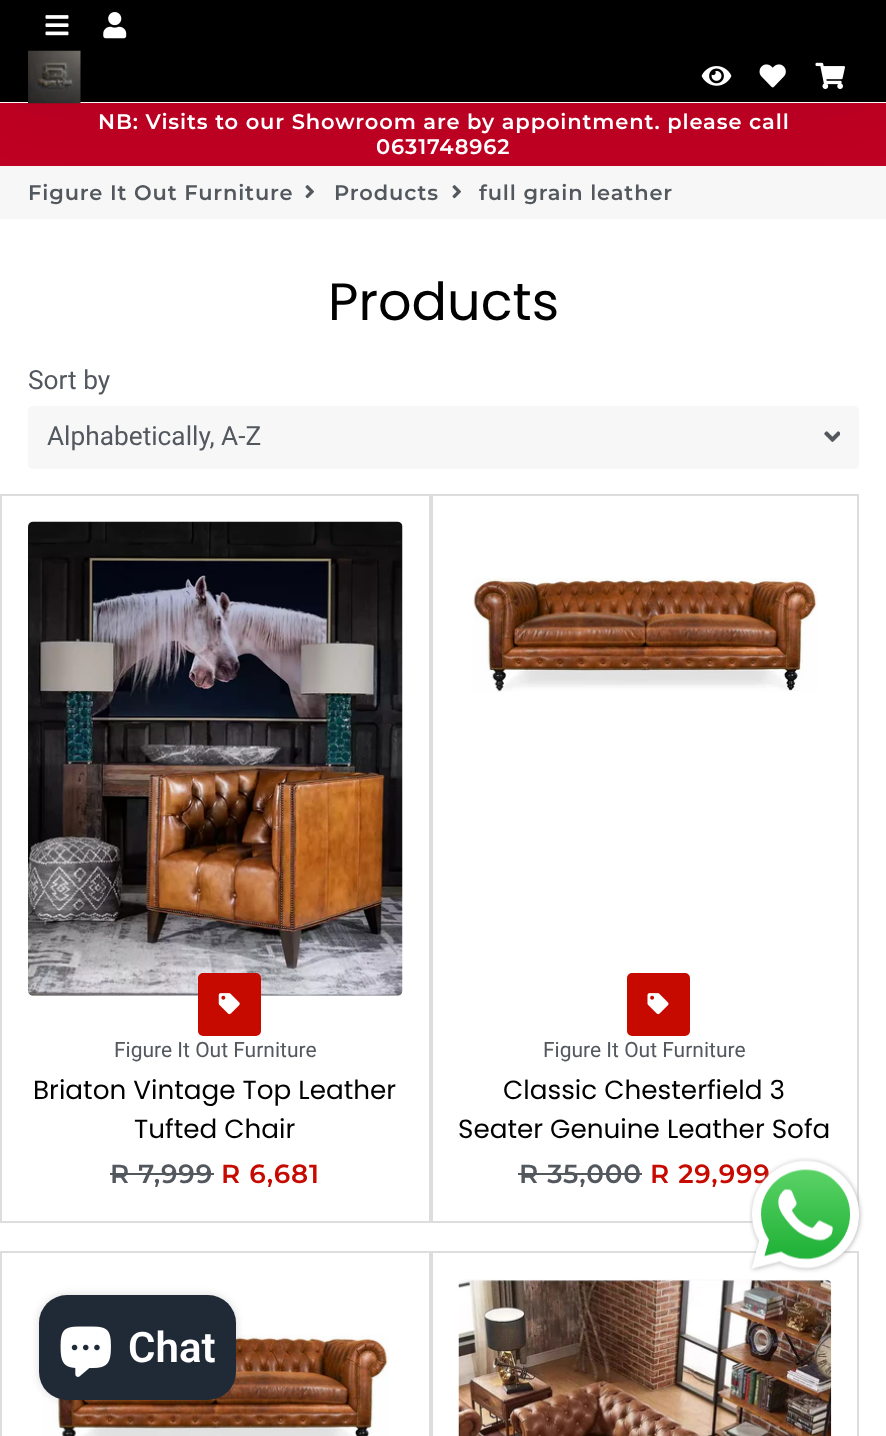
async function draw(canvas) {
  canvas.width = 886
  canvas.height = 1436
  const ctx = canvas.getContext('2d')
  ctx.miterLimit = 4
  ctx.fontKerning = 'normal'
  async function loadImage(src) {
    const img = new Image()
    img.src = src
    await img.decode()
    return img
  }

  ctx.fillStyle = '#fff'
  ctx.fillRect(0, 0, 886, 1436)
  ctx.fillStyle = '#bf0123'
  ctx.fillRect(0, 103, 886, 63)
  ctx.fillStyle = '#f7f7f7'
  ctx.fillRect(0, 166, 886, 53)
  ctx.drawImage(await loadImage('image6.png'), 305, 185, 9, 14)
  ctx.drawImage(await loadImage('image6.png'), 452, 185, 9, 14)
  ctx.fillStyle = '#00000012'
  ctx.filter = 'blur(35px)'
  ctx.beginPath()
  ctx.rect(0, 0, 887, 102)
  ctx.fill()
  ctx.filter = 'none'
  ctx.fillStyle = '#000'
  ctx.fillRect(0, 0, 886, 102)
  ctx.drawImage(await loadImage('image0.png'), 45, 15, 24, 21)
  ctx.drawImage(await loadImage('image1.png'), 103, 12, 24, 27)
  ctx.drawImage(await loadImage('image2.png'), 28, 50, 53, 54)
  ctx.drawImage(await loadImage('image3.png'), 701, 66, 31, 20)
  ctx.drawImage(await loadImage('image4.png'), 759, 64, 27, 24)
  ctx.drawImage(await loadImage('image5.png'), 815, 62, 30, 27)
  ctx.letterSpacing = '0.88px'
  ctx.font = '600 21px Montserrat'
  ctx.fillStyle = '#fff'
  ctx.fillText('NB: Visits to our Showroom are by appointment. please call', 98, 129)
  ctx.fillText('0631748962', 376, 154)
  ctx.fillStyle = '#53585f'
  ctx.fillText('Figure It Out Furniture', 28, 200)
  ctx.fillText('Products', 334, 200)
  ctx.fillText('full grain leather', 479, 200)
  ctx.letterSpacing = '0px'
  ctx.font = '52.5px Poppins'
  ctx.fillStyle = '#000'
  ctx.fillText('Products', 328, 320)
  ctx.font = '26.25px Roboto'
  ctx.fillStyle = '#53585f'
  ctx.fillText('Sort by', 28, 389)
  ctx.fillStyle = '#f7f7f7'
  ctx.beginPath()
  ctx.roundRect(28, 406, 831, 63, 5)
  ctx.fill()
  ctx.drawImage(await loadImage('image7.png'), 824, 431, 16, 11)
  ctx.fillStyle = '#53585f'
  ctx.fillText('Alphabetically, A-Z', 47, 445)
  ctx.strokeStyle = '#ddd'
  ctx.lineWidth = 2
  ctx.strokeRect(1, 495, 429, 727)
  ctx.drawImage(await loadImage('image8.png'), 28, 521, 375, 475)
  ctx.fillStyle = '#c60a00'
  ctx.beginPath()
  ctx.roundRect(199, 974, 61, 61, 4)
  ctx.fill()
  ctx.strokeStyle = '#c60a00'
  ctx.stroke()
  ctx.drawImage(await loadImage('image9.png'), 218, 993, 22, 22)
  ctx.font = '21px Roboto'
  ctx.fillStyle = '#53585f'
  ctx.fillText('Figure It Out Furniture', 114, 1057)
  ctx.font = '26.25px Poppins'
  ctx.fillStyle = '#000'
  ctx.fillText('Briaton Vintage Top Leather', 33, 1099)
  ctx.fillText('Tufted Chair', 134, 1138)
  ctx.letterSpacing = '0.88px'
  ctx.font = '600 26.25px Montserrat'
  ctx.fillStyle = '#53585f'
  ctx.fillText('R 7,999', 110, 1183)
  ctx.fillRect(110, 1173, 104, 2)
  ctx.fillStyle = '#c60a00'
  ctx.fillText('R 6,681', 221, 1183)
  ctx.strokeStyle = '#ddd'
  ctx.strokeRect(432, 495, 426, 727)
  ctx.drawImage(await loadImage('image10.png'), 473, 578, 345, 114)
  ctx.beginPath()
  ctx.roundRect(628, 974, 61, 61, 4)
  ctx.fill()
  ctx.strokeStyle = '#c60a00'
  ctx.stroke()
  ctx.drawImage(await loadImage('image11.png'), 647, 993, 22, 22)
  ctx.letterSpacing = '0px'
  ctx.font = '21px Roboto'
  ctx.fillStyle = '#53585f'
  ctx.fillText('Figure It Out Furniture', 543, 1057)
  ctx.font = '26.25px Poppins'
  ctx.fillStyle = '#000'
  ctx.fillText('Classic Chesterfield 3', 503, 1099)
  ctx.fillText('Seater Genuine Leather Sofa', 458, 1138)
  ctx.letterSpacing = '0.88px'
  ctx.font = '600 26.25px Montserrat'
  ctx.fillStyle = '#53585f'
  ctx.fillText('R 35,000', 519, 1183)
  ctx.fillRect(518, 1173, 124, 2)
  ctx.fillStyle = '#c60a00'
  ctx.fillText('R 29,999', 650, 1183)
  ctx.strokeStyle = '#ddd'
  ctx.strokeRect(1, 1252, 429, 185)
  ctx.drawImage(await loadImage('image12.png'), 42, 1335, 347, 101)
  ctx.strokeRect(432, 1252, 426, 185)
  ctx.drawImage(await loadImage('image13.png'), 458, 1279, 374, 157)
  ctx.drawImage(await loadImage('image14.png'), 749, 1157, 115, 116)
  ctx.fillStyle = '#00000026'
  ctx.filter = 'blur(4.5px)'
  ctx.beginPath()
  ctx.roundRect(39, 1295, 197, 105, 28)
  ctx.fill()
  ctx.filter = 'none'
  ctx.fillStyle = '#202a36'
  ctx.beginPath()
  ctx.roundRect(39, 1295, 197, 105, 28)
  ctx.fill()
  ctx.drawImage(await loadImage('image15.png'), 60, 1326, 51, 51)
  ctx.letterSpacing = '0px'
  ctx.font = '600 42px Roboto'
  ctx.fillStyle = '#fff'
  ctx.fillText('Chat', 128, 1362)
}

draw(document.querySelector('canvas'))
